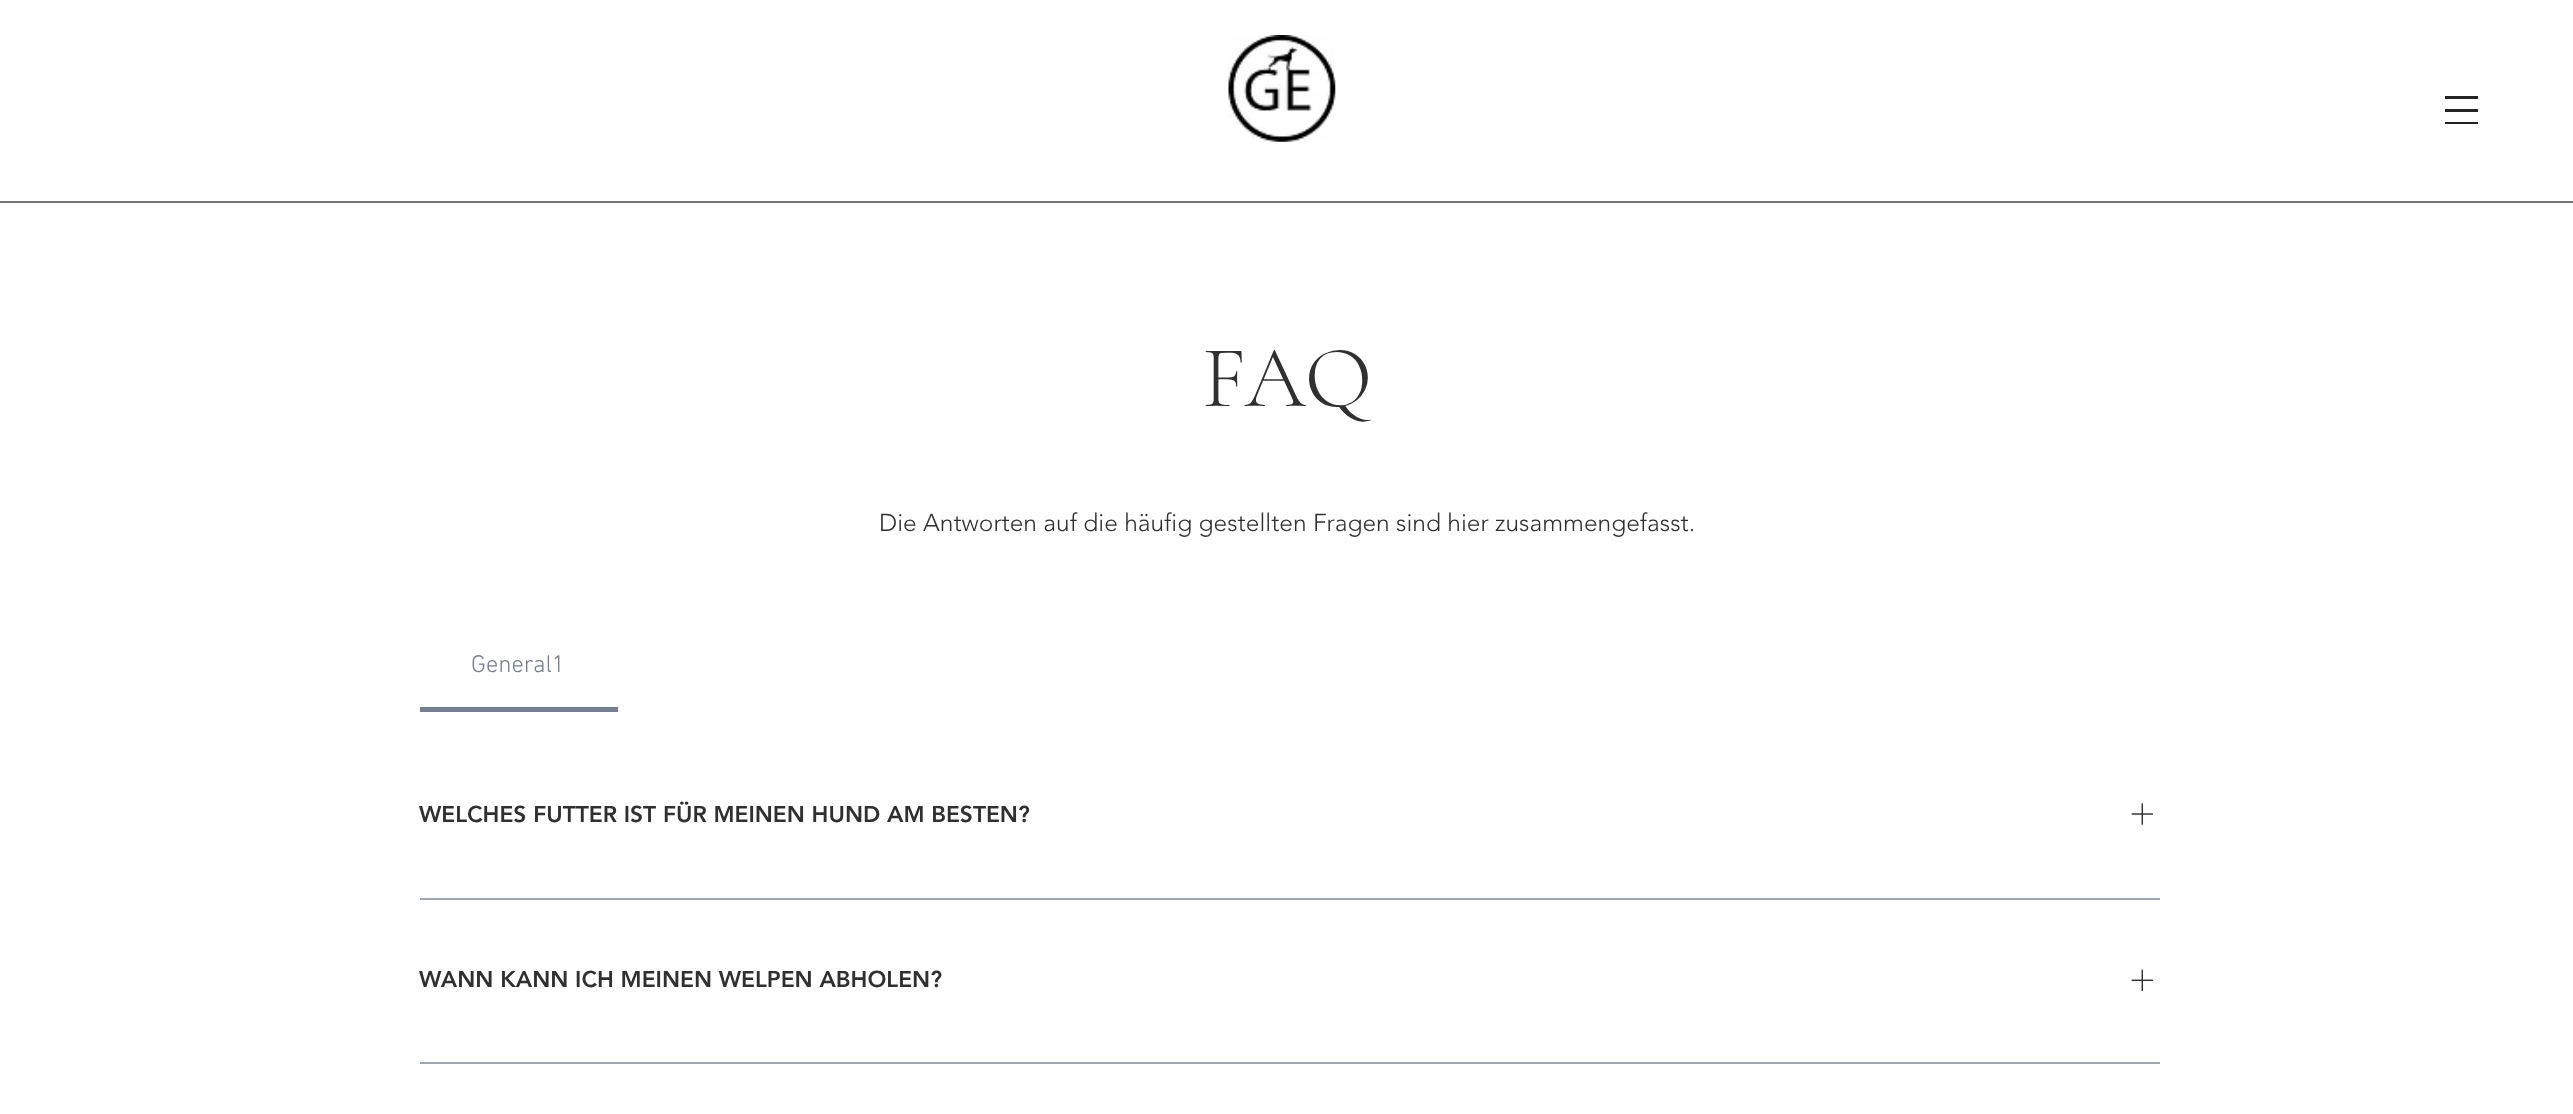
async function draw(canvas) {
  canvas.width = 2573
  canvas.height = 1114
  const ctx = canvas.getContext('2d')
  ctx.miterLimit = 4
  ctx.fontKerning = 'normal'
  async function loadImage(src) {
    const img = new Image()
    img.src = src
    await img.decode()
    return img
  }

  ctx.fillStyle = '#fff'
  ctx.fillRect(0, 0, 2573, 1114)
  ctx.drawImage(await loadImage('image0.png'), 1228, 35, 108, 107)
  ctx.fillStyle = '#757575'
  ctx.fillRect(0, 201, 2573, 2)
  ctx.fillStyle = '#242323'
  ctx.fillRect(2445, 96, 33, 3)
  ctx.fillRect(2445, 109, 33, 3)
  ctx.fillRect(2445, 122, 33, 2)
  ctx.font = '300 88px Cormorant Garamond'
  ctx.fillStyle = '#303030'
  ctx.fillText('FAQ', 1202, 406)
  ctx.font = '300 24.5px "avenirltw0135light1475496"'
  ctx.fillText('Die Antworten auf die häufig gestellten Fragen sind hier zusammengefasst.', 879, 531)
  ctx.fillStyle = '#748092'
  ctx.fillRect(420, 707, 198, 5)
  ctx.font = '300 24.5px "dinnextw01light"'
  ctx.fillText('General1', 471, 672)
  ctx.font = '900 22.75px "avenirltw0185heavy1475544"'
  ctx.fillStyle = '#303030'
  ctx.fillText('WELCHES FUTTER IST FÜR MEINEN HUND AM BESTEN?', 419, 822)
  ctx.drawImage(await loadImage('image1.png'), 2131, 803, 22, 22)
  ctx.fillStyle = '#9fa7b4'
  ctx.fillRect(420, 898, 1740, 2)
  ctx.fillStyle = '#303030'
  ctx.fillText('WANN KANN ICH MEINEN WELPEN ABHOLEN?', 419, 987)
  ctx.drawImage(await loadImage('image2.png'), 2131, 969, 22, 22)
  ctx.fillStyle = '#9fa7b4'
  ctx.fillRect(420, 1062, 1740, 2)
}

draw(document.querySelector('canvas'))
